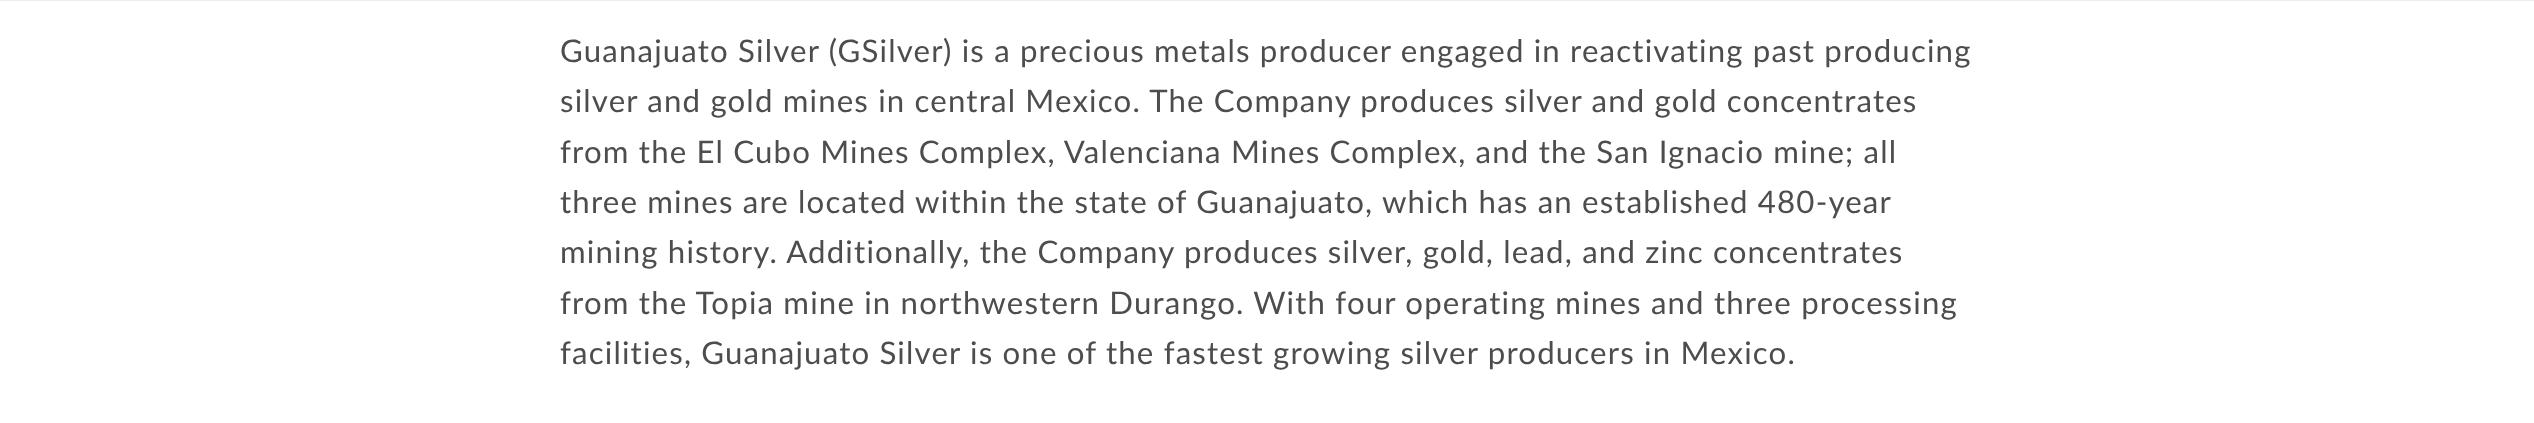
async function draw(canvas) {
  canvas.width = 2534
  canvas.height = 423
  const ctx = canvas.getContext('2d')
  ctx.miterLimit = 4
  ctx.fontKerning = 'normal'

  ctx.fillStyle = '#fff'
  ctx.fillRect(0, 0, 2534, 423)
  ctx.fillStyle = '#ececec'
  ctx.fillRect(0, 0, 2534, 1)
  ctx.letterSpacing = '1.17px'
  ctx.font = '31.2px Lato'
  ctx.fillStyle = '#4d4d4d'
  ctx.fillText('Guanajuato Silver (GSilver) is a precious metals producer engaged in reactivating past producing', 560, 62)
  ctx.fillText('silver and gold mines in central Mexico. The Company produces silver and gold concentrates', 560, 112)
  ctx.fillText('from the El Cubo Mines Complex, Valenciana Mines Complex, and the San Ignacio mine; all', 560, 163)
  ctx.fillText('three mines are located within the state of Guanajuato, which has an established 480-year', 560, 213)
  ctx.fillText('mining history. Additionally, the Company produces silver, gold, lead, and zinc concentrates', 560, 263)
  ctx.fillText('from the Topia mine in northwestern Durango. With four operating mines and three processing', 560, 314)
  ctx.fillText('facilities, Guanajuato Silver is one of the fastest growing silver producers in Mexico.', 560, 364)
}

draw(document.querySelector('canvas'))
